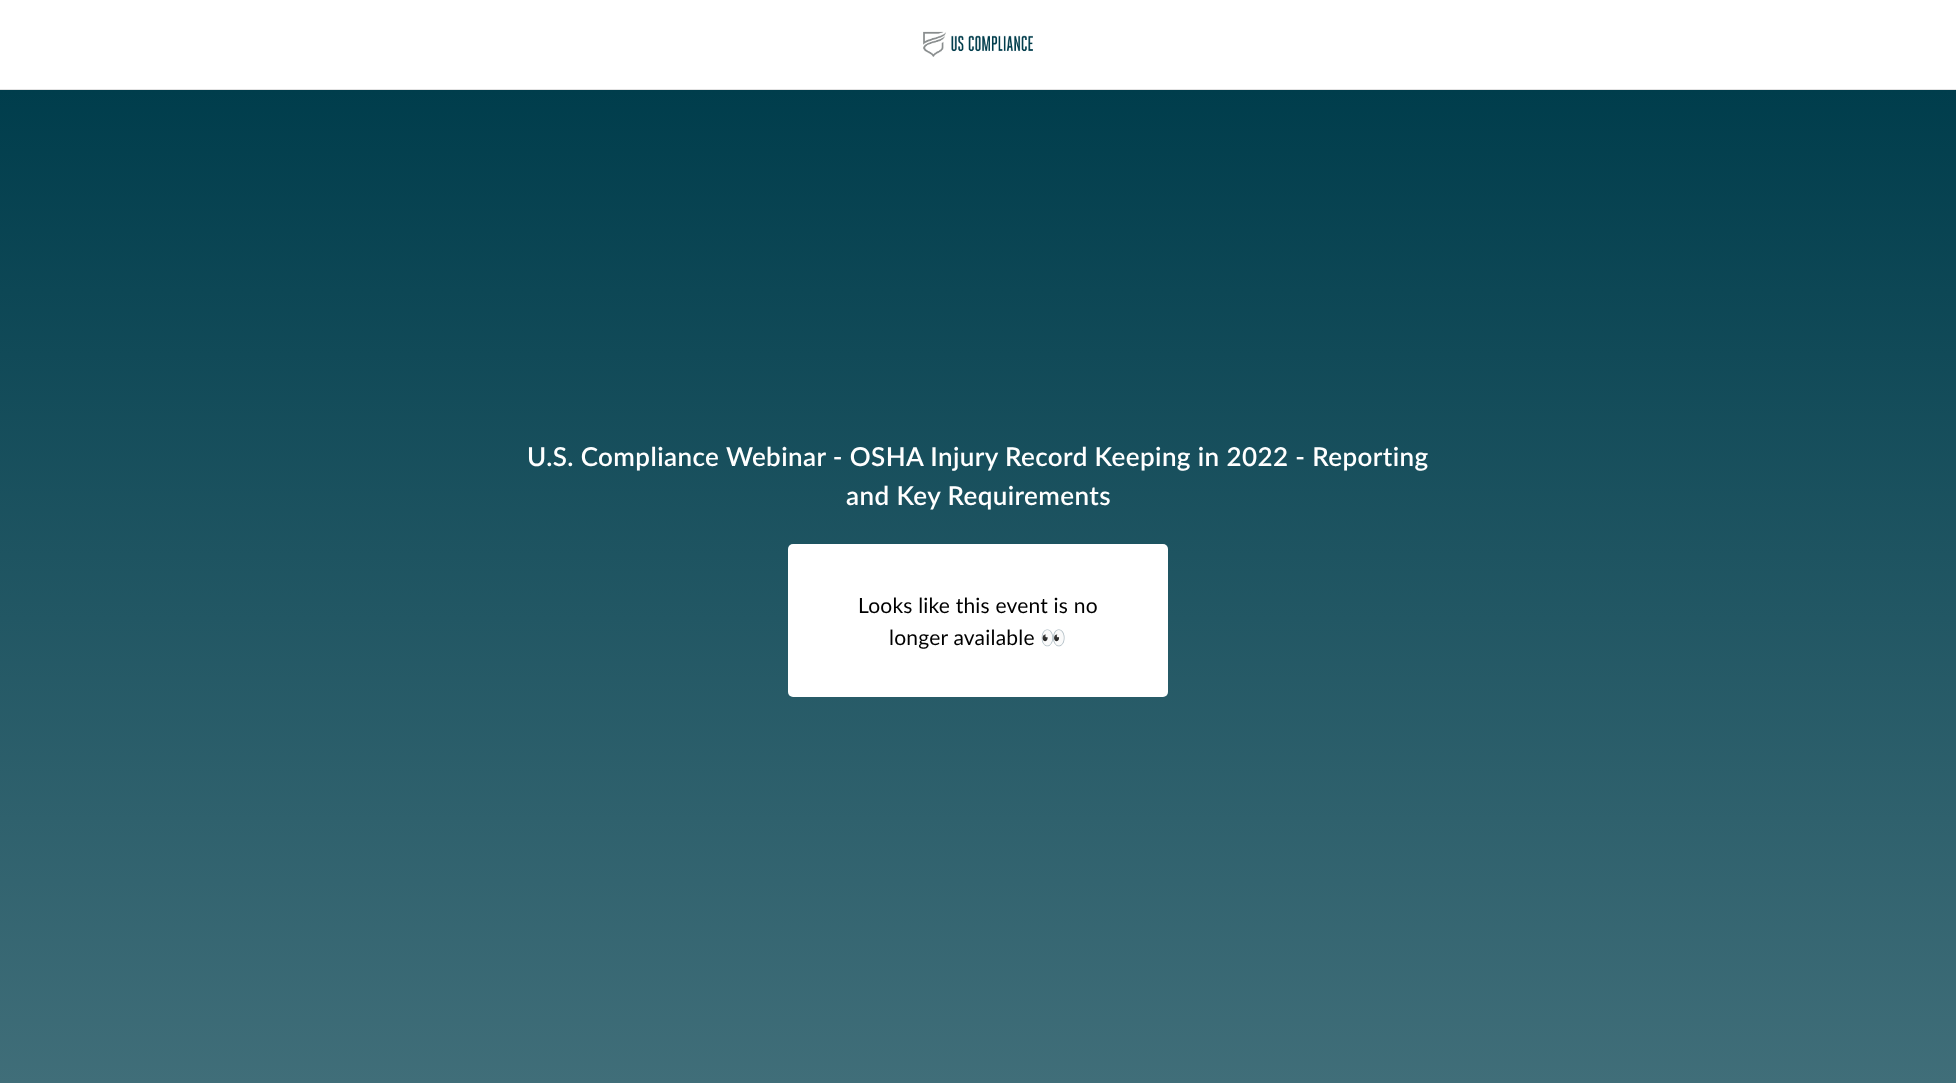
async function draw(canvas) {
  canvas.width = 1956
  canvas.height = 1083
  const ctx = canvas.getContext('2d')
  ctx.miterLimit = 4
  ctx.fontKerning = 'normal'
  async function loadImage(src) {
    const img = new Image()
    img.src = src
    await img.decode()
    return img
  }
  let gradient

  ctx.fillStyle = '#fff'
  ctx.fillRect(0, 0, 1956, 1083)
  ctx.fillStyle = '#e2e2e2'
  ctx.fillRect(0, 89, 1956, 1)
  ctx.drawImage(await loadImage('image0.png'), 923, 31, 110, 26)
  gradient = ctx.createLinearGradient(978, 90, 978, 1083)
  gradient.addColorStop(0, '#003d4c')
  gradient.addColorStop(1, '#406e79')
  ctx.fillStyle = gradient
  ctx.fillRect(0, 90, 1956, 993)
  ctx.letterSpacing = '0.4px'
  ctx.font = '600 26px Lato'
  ctx.fillStyle = '#fff'
  ctx.fillText('U.S. Compliance Webinar - OSHA Injury Record Keeping in 2022 - Reporting', 527, 466)
  ctx.fillText('and Key Requirements', 846, 505)
  ctx.beginPath()
  ctx.roundRect(788, 544, 380, 153, 5)
  ctx.fill()
  ctx.letterSpacing = '0.2px'
  ctx.font = '21px Lato'
  ctx.fillStyle = '#000'
  ctx.fillText('Looks like this event is no', 858, 613)
  ctx.fillText('longer available', 889, 645)
  ctx.font = '21px Noto Color Emoji'
  ctx.fillText('👀', 1040, 645)
}

draw(document.querySelector('canvas'))
